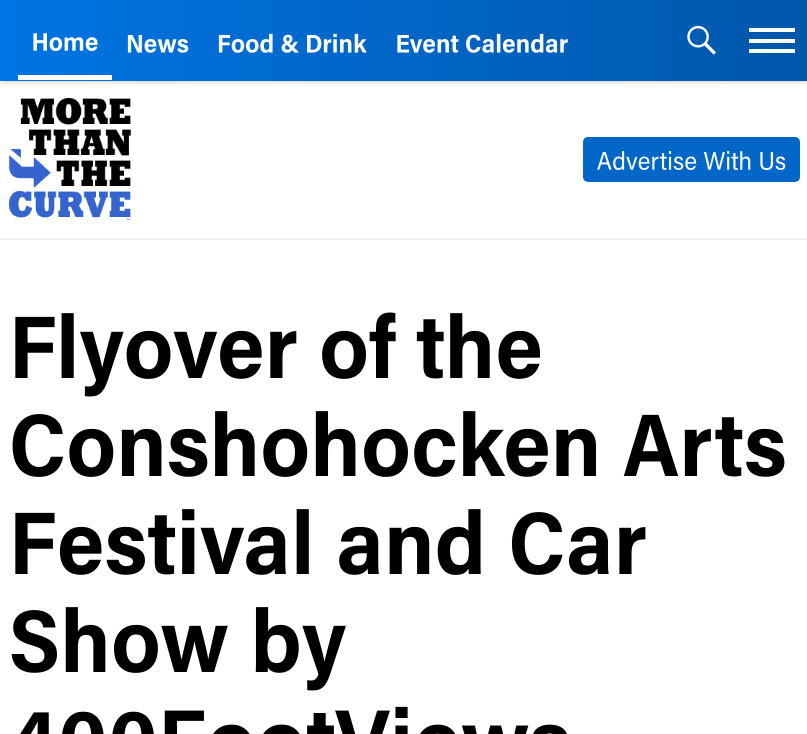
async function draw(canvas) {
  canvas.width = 807
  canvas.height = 734
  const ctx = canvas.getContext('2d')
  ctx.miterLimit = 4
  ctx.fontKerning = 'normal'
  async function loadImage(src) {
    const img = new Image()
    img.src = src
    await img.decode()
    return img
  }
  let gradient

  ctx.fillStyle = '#fff'
  ctx.fillRect(0, 0, 807, 734)
  ctx.fillStyle = '#00000033'
  ctx.filter = 'blur(2px)'
  ctx.beginPath()
  ctx.rect(0, 2, 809, 80)
  ctx.fill()
  ctx.filter = 'none'
  gradient = ctx.createLinearGradient(0, 40, 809, 40)
  gradient.addColorStop(0, '#0074e3')
  gradient.addColorStop(1, '#0057aa')
  ctx.fillStyle = gradient
  ctx.fillRect(0, 0, 807, 81)
  ctx.drawImage(await loadImage('image0.png'), 33, 33, 65, 18)
  ctx.fillStyle = '#fff'
  ctx.fillRect(18, 75, 94, 5)
  ctx.drawImage(await loadImage('image1.png'), 127, 35, 62, 18)
  ctx.drawImage(await loadImage('image2.png'), 218, 33, 149, 20)
  ctx.drawImage(await loadImage('image3.png'), 397, 33, 171, 20)
  ctx.drawImage(await loadImage('image4.png'), 687, 25, 29, 30)
  ctx.fillRect(749, 28, 46, 4)
  ctx.fillRect(749, 39, 46, 4)
  ctx.fillRect(749, 49, 46, 4)
  ctx.fillStyle = '#f1f1f1'
  ctx.fillRect(0, 238, 807, 2)
  ctx.drawImage(await loadImage('image5.png'), 8, 98, 124, 123)
  ctx.fillStyle = '#0067c9'
  ctx.beginPath()
  ctx.roundRect(583, 137, 217, 45, 5)
  ctx.fill()
  ctx.drawImage(await loadImage('image6.png'), 597, 151, 189, 19)
  ctx.drawImage(await loadImage('image7.png'), 15, 312, 526, 85)
  ctx.drawImage(await loadImage('image8.png'), 12, 411, 773, 66)
  ctx.drawImage(await loadImage('image9.png'), 15, 509, 631, 66)
  ctx.drawImage(await loadImage('image10.png'), 11, 607, 335, 84)
  ctx.drawImage(await loadImage('image11.png'), 20, 706, 547, 28)
}

draw(document.querySelector('canvas'))
